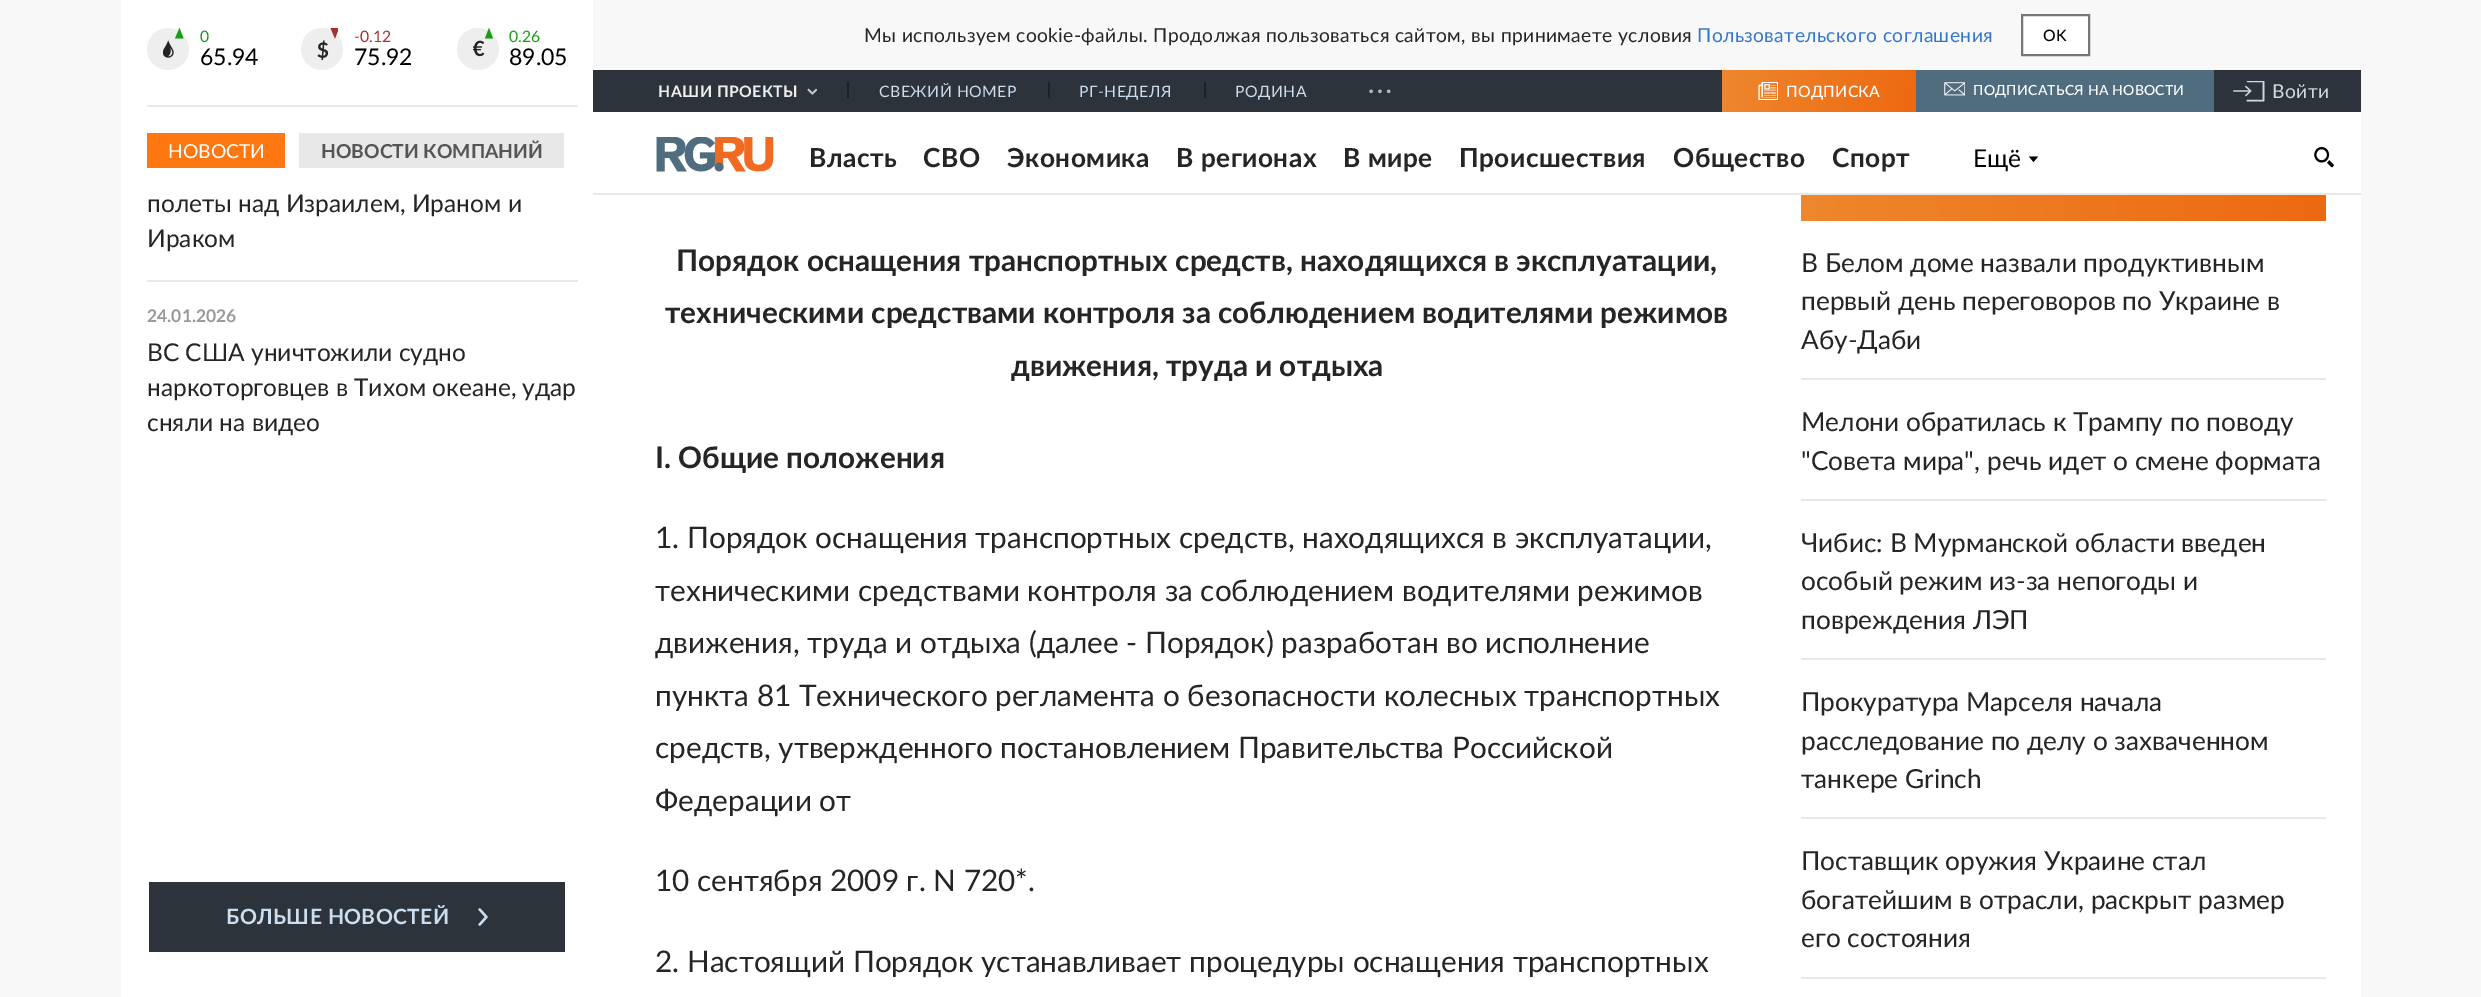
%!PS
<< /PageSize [2481 997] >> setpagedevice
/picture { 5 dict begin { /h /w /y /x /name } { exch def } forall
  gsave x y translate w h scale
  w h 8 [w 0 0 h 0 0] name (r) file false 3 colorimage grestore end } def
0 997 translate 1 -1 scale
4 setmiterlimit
0.973 setgray
0 0 2481 997 rectfill
1 setgray
121 0 472 997 rectfill
0.91 setgray
147 105 431 2 rectfill
0.933 setgray
newpath 168 49 21 0 360 arc closepath fill
0.086 0.624 0.075 setrgbcolor
newpath 175 38.5 moveto 183.5 38.5 lineto 179.5 28 lineto closepath fill
(img1.rgb) 163 40 11 18 picture
/Lato-Regular [15.75 0 0 -15.75 0 0] selectfont
200 42 moveto (0) show
/Lato-Regular [23 0 0 -23 0 0] selectfont
0 setgray
200 65 moveto (65.94) show
0.933 setgray
newpath 322 49 21 0 360 arc closepath fill
gsave
329 28 9 11 rectclip
0.663 0.18 0.173 setrgbcolor
newpath 339 28 moveto 330.5 28 lineto 335 38.5 lineto closepath fill
grestore
(img2.rgb) 317 40 12 21 picture
/Lato-Regular [15.75 0 0 -15.75 0 0] selectfont
0.663 0.18 0.173 setrgbcolor
354 42 moveto (-0.12) show
/Lato-Regular [23 0 0 -23 0 0] selectfont
0 setgray
354 65 moveto (75.92) show
0.933 setgray
newpath 478 49 21 0 360 arc closepath fill
0.086 0.624 0.075 setrgbcolor
newpath 485 38.5 moveto 493 38.5 lineto 489 28 lineto closepath fill
(img3.rgb) 473 40 12 17 picture
/Lato-Regular [15.75 0 0 -15.75 0 0] selectfont
509 42 moveto (0.26) show
/Lato-Regular [23 0 0 -23 0 0] selectfont
0 setgray
509 65 moveto (89.05) show
1 0.467 0.067 setrgbcolor
147 133 138 35 rectfill
/Lato-Regular [19.25 0 0 -19.25 0 0] selectfont
1 setgray
168 158 moveto (НОВОСТИ) show
0.91 setgray
299 133 265 35 rectfill
/Lato-Bold [19.25 0 0 -19.25 0 0] selectfont
0.333 setgray
321 158 moveto (НОВОСТИ КОМПАНИЙ) show
/Lato-Regular [24.5 0 0 -24.5 0 0] selectfont
0.145 setgray
147 212 moveto (полеты над Израилем, Ираном и) show
147 247 moveto (Ираком) show
0.91 setgray
147 280 431 2 rectfill
/Lato-Bold [17.5 0 0 -17.5 0 0] selectfont
0.6 setgray
147 322 moveto (24.01.2026) show
/Lato-Regular [24.5 0 0 -24.5 0 0] selectfont
0.145 setgray
147 361 moveto (ВС США уничтожили судно) show
147 396 moveto (наркоторговцев в Тихом океане, удар) show
147 431 moveto (сняли на видео) show
0.173 0.2 0.231 setrgbcolor
149 882 416 70 rectfill
/Lato-Bold [21 0 0 -21 0 0] selectfont
0.8 0.871 0.933 setrgbcolor
226 924 moveto 0.4 0 (БОЛЬШЕ НОВОСТЕЙ) ashow
(img4.rgb) 478 908 10 18 picture
/Lato-Regular [19.25 0 0 -19.25 0 0] selectfont
0.145 setgray
864 42 moveto 0.4 0 (Мы используем cookie-файлы. Продолжая пользоваться сайтом, вы принимаете условия) ashow
0.2 0.467 0.8 setrgbcolor
1697 42 moveto 0.4 0 (Пользовательского соглашения) ashow
1 setgray
newpath 2022 15 moveto 2089 15 lineto 2089 55 lineto 2022 55 lineto closepath gsave fill grestore
0.467 setgray
2 setlinewidth
stroke
/Lato-Medium [15.75 0 0 -15.75 0 0] selectfont
0 setgray
2043 41 moveto 0.25 0 (OK) ashow
0.173 0.2 0.231 setrgbcolor
593 70 1768 42 rectfill
/Lato-Bold [15.75 0 0 -15.75 0 0] selectfont
0.933 setgray
658 97 moveto 0.5 0 (НАШИ ПРОЕКТЫ) ashow
(img5.rgb) 807 88 10 7 picture
0.102 0.133 0.173 setrgbcolor
847 82 2 16 rectfill
/Lato-Regular [15.75 0 0 -15.75 0 0] selectfont
0.8 0.871 0.933 setrgbcolor
879 97 moveto 0.5 0 (СВЕЖИЙ НОМЕР) ashow
0.102 0.133 0.173 setrgbcolor
1048 82 2 16 rectfill
0.8 0.871 0.933 setrgbcolor
1079 97 moveto 0.5 0 (РГ-НЕДЕЛЯ) ashow
0.102 0.133 0.173 setrgbcolor
1204 82 2 16 rectfill
0.8 0.871 0.933 setrgbcolor
1235 97 moveto 0.5 0 (РОДИНА) ashow
(img6.rgb) 1369 89 22 5 picture
gsave newpath 1722 70 moveto 1916 70 lineto 1916 112 lineto 1722 112 lineto closepath clip newpath
<< /ShadingType 2 /ColorSpace /DeviceRGB /Coords [1917 96 1721 86] /Extend [true true] /Function << /FunctionType 2 /Domain [0 1] /C0 [0.933 0.412 0.067] /C1 [0.929 0.529 0.176] /N 1 >> >> shfill grestore
(img7.rgb) 1758 82 20 18 picture
/Lato-Medium [15.75 0 0 -15.75 0 0] selectfont
1 setgray
1786 97 moveto 0.25 0 (ПОДПИСКА) ashow
0.314 0.424 0.498 setrgbcolor
1916 70 298 42 rectfill
(img8.rgb) 1944 82 21 14 picture
/Lato-Medium [14 0 0 -14 0 0] selectfont
1 setgray
1973 95 moveto 0.25 0 (ПОДПИСАТЬСЯ НА НОВОСТИ) ashow
(img9.rgb) 2233 81 32 21 picture
/Lato-Regular [19.25 0 0 -19.25 0 0] selectfont
0.835 0.839 0.847 setrgbcolor
2272 98 moveto 0.5 0 (Войти) ashow
1 setgray
593 112 1768 81 rectfill
0.91 setgray
593 193 1768 2 rectfill
(img10.rgb) 656 137 118 35 picture
/Lato-Bold [26.25 0 0 -26.25 0 0] selectfont
0.145 setgray
809 167 moveto 0.5 0 (Власть) ashow
923 167 moveto 0.5 0 (СВО) ashow
1007 167 moveto 0.5 0 (Экономика) ashow
1176 167 moveto 0.5 0 (В регионах) ashow
1343 167 moveto 0.5 0 (В мире) ashow
1459 167 moveto 0.5 0 (Происшествия) ashow
1673 167 moveto 0.5 0 (Общество) ashow
1832 167 moveto 0.5 0 (Спорт) ashow
/Lato-Regular [24.5 0 0 -24.5 0 0] selectfont
0 setgray
1973 167 moveto (Ещё) show
newpath 2033.5 162 moveto 2029 156.5 lineto 2038 156.5 lineto closepath fill
(img11.rgb) 2314 147 20 21 picture
1 setgray
593 195 1768 802 rectfill
/Lato-Bold [29.75 0 0 -29.75 0 0] selectfont
0.145 setgray
676 271 moveto (Порядок оснащения транспортных средств, находящихся в эксплуатации,) show
665 323 moveto (техническими средствами контроля за соблюдением водителями режимов) show
1011 376 moveto (движения, труда и отдыха) show
655 468 moveto (I. Общие положения) show
/Lato-Regular [29.75 0 0 -29.75 0 0] selectfont
655 548 moveto (1. Порядок оснащения транспортных средств, находящихся в эксплуатации,) show
655 601 moveto (техническими средствами контроля за соблюдением водителями режимов) show
655 653 moveto (движения, труда и отдыха \(далее - Порядок\) разработан во исполнение) show
655 706 moveto (пункта 81 Технического регламента о безопасности колесных транспортных) show
655 758 moveto (средств, утвержденного постановлением Правительства Российской) show
655 811 moveto (Федерации от) show
655 891 moveto (10 сентября 2009 г. N 720*.) show
655 972 moveto (2. Настоящий Порядок устанавливает процедуры оснащения транспортных) show
gsave newpath 1801 195 moveto 2326 195 lineto 2326 221 lineto 1801 221 lineto closepath clip newpath
<< /ShadingType 2 /ColorSpace /DeviceRGB /Coords [2327 196 1799 168] /Extend [true true] /Function << /FunctionType 2 /Domain [0 1] /C0 [0.933 0.412 0.067] /C1 [0.929 0.529 0.176] /N 1 >> >> shfill grestore
0.91 setgray
1801 378 525 2 rectfill
/Lato-Regular [26.25 0 0 -26.25 0 0] selectfont
0.145 setgray
1801 272 moveto (В Белом доме назвали продуктивным) show
1801 310 moveto (первый день переговоров по Украине в) show
1801 349 moveto (Абу-Даби) show
0.91 setgray
1801 499 525 2 rectfill
0.145 setgray
1801 431 moveto (Мелони обратилась к Трампу по поводу) show
1801 470 moveto ("Совета мира", речь идет о смене формата) show
0.91 setgray
1801 658 525 2 rectfill
0.145 setgray
1801 552 moveto (Чибис: В Мурманской области введен) show
1801 590 moveto (особый режим из-за непогоды и) show
1801 629 moveto (повреждения ЛЭП) show
0.91 setgray
1801 817 525 2 rectfill
0.145 setgray
1801 711 moveto (Прокуратура Марселя начала) show
1801 750 moveto (расследование по делу о захваченном) show
1801 788 moveto (танкере Grinch) show
0.91 setgray
1801 977 525 2 rectfill
0.145 setgray
1801 870 moveto (Поставщик оружия Украине стал) show
1801 909 moveto (богатейшим в отрасли, раскрыт размер) show
1801 947 moveto (его состояния) show
showpage
